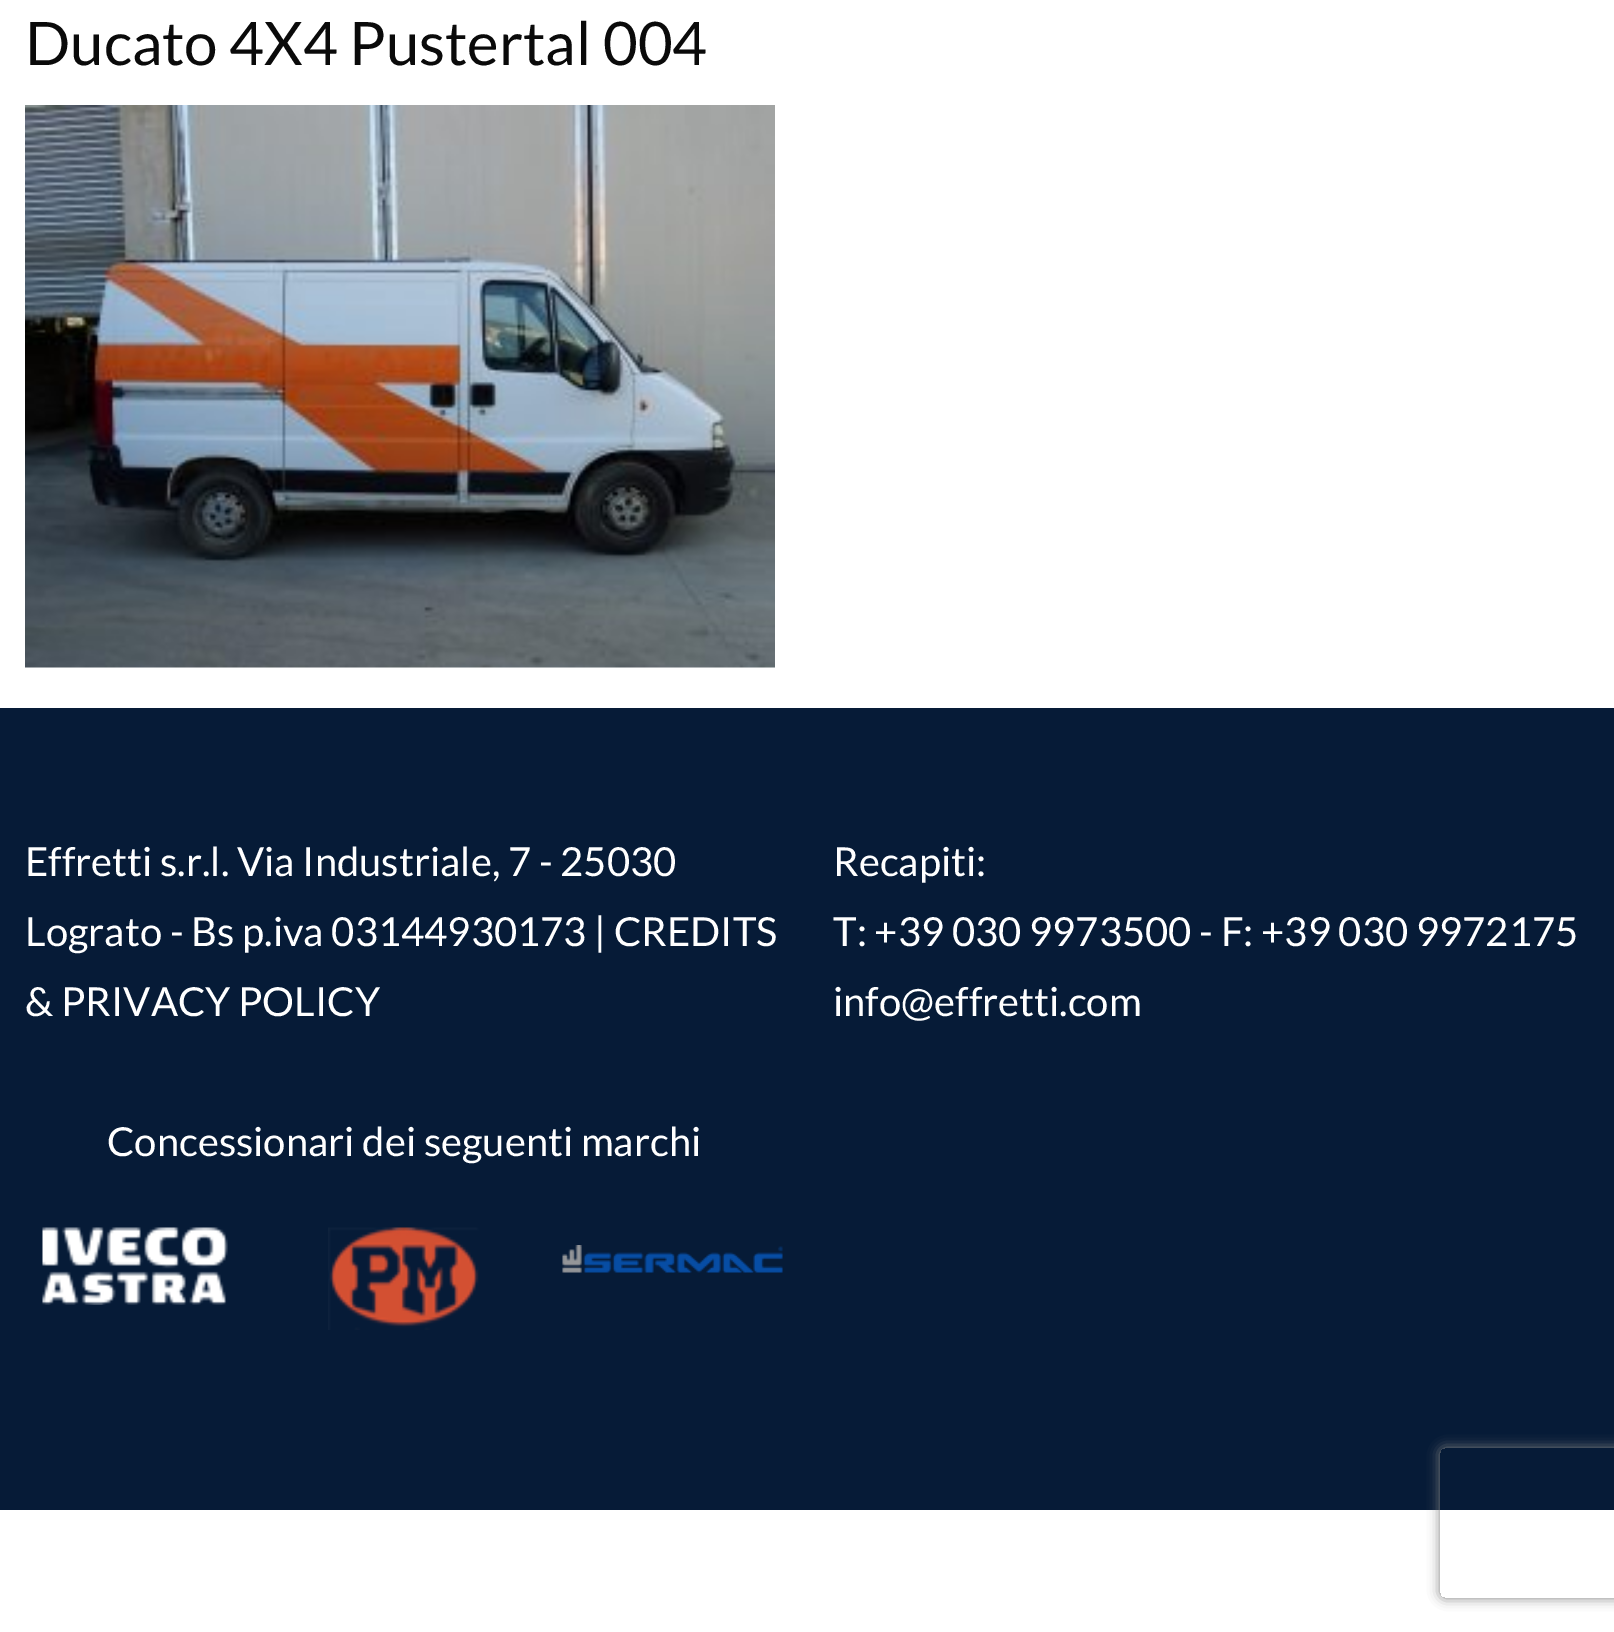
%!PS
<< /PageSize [1614 1632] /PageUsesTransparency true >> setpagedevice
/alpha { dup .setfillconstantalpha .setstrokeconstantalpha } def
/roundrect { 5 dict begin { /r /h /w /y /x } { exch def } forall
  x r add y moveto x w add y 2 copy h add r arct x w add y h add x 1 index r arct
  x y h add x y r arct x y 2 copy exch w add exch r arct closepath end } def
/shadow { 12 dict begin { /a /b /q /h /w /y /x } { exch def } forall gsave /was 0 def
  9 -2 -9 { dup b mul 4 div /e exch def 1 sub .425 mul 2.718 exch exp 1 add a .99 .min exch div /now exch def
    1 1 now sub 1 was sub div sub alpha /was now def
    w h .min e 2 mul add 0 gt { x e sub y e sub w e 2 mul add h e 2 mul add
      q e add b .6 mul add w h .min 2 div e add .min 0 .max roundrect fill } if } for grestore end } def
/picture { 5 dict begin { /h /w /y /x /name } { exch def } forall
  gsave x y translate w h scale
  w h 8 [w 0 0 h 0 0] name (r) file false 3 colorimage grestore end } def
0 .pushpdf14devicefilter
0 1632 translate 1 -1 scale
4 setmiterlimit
1 setgray
0 0 1614 1632 rectfill
/Lato-Regular [60 0 0 -60 0 0] selectfont
0.039 setgray
25 65 moveto (Ducato 4X4 Pustertal 004) show
(img1.rgb) 25 105 750 563 picture
0.024 0.106 0.216 setrgbcolor
0 708 1614 802 rectfill
/Lato-Regular [40 0 0 -40 0 0] selectfont
1 setgray
25 876 moveto (Effretti s.r.l. Via Industriale, 7 - 25030) show
25 946 moveto (Lograto - Bs p.iva 03144930173 | CREDITS) show
25 1016 moveto (& PRIVACY POLICY) show
833 876 moveto (Recapiti:) show
833 946 moveto (T: +39 030 9973500 - F: +39 030 9972175) show
833 1016 moveto (info@effretti.com) show
107 1156 moveto (Concessionari dei seguenti marchi) show
(img2.rgb) 42 1227 186 78 picture
(img3.rgb) 328 1227 151 103 picture
(img4.rgb) 562 1245 221 28 picture
gsave
newpath 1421 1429 moveto 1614 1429 lineto 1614 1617 lineto 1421 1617 lineto closepath 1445 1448 moveto 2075 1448 lineto 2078 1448 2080 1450 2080 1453 curveto 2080 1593 lineto 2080 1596 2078 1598 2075 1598 curveto 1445 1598 lineto 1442 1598 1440 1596 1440 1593 curveto 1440 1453 lineto 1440 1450 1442 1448 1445 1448 curveto closepath eoclip newpath
0.502 setgray
1440 1448 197 150 5 6 1 shadow
grestore
.poppdf14devicefilter showpage
